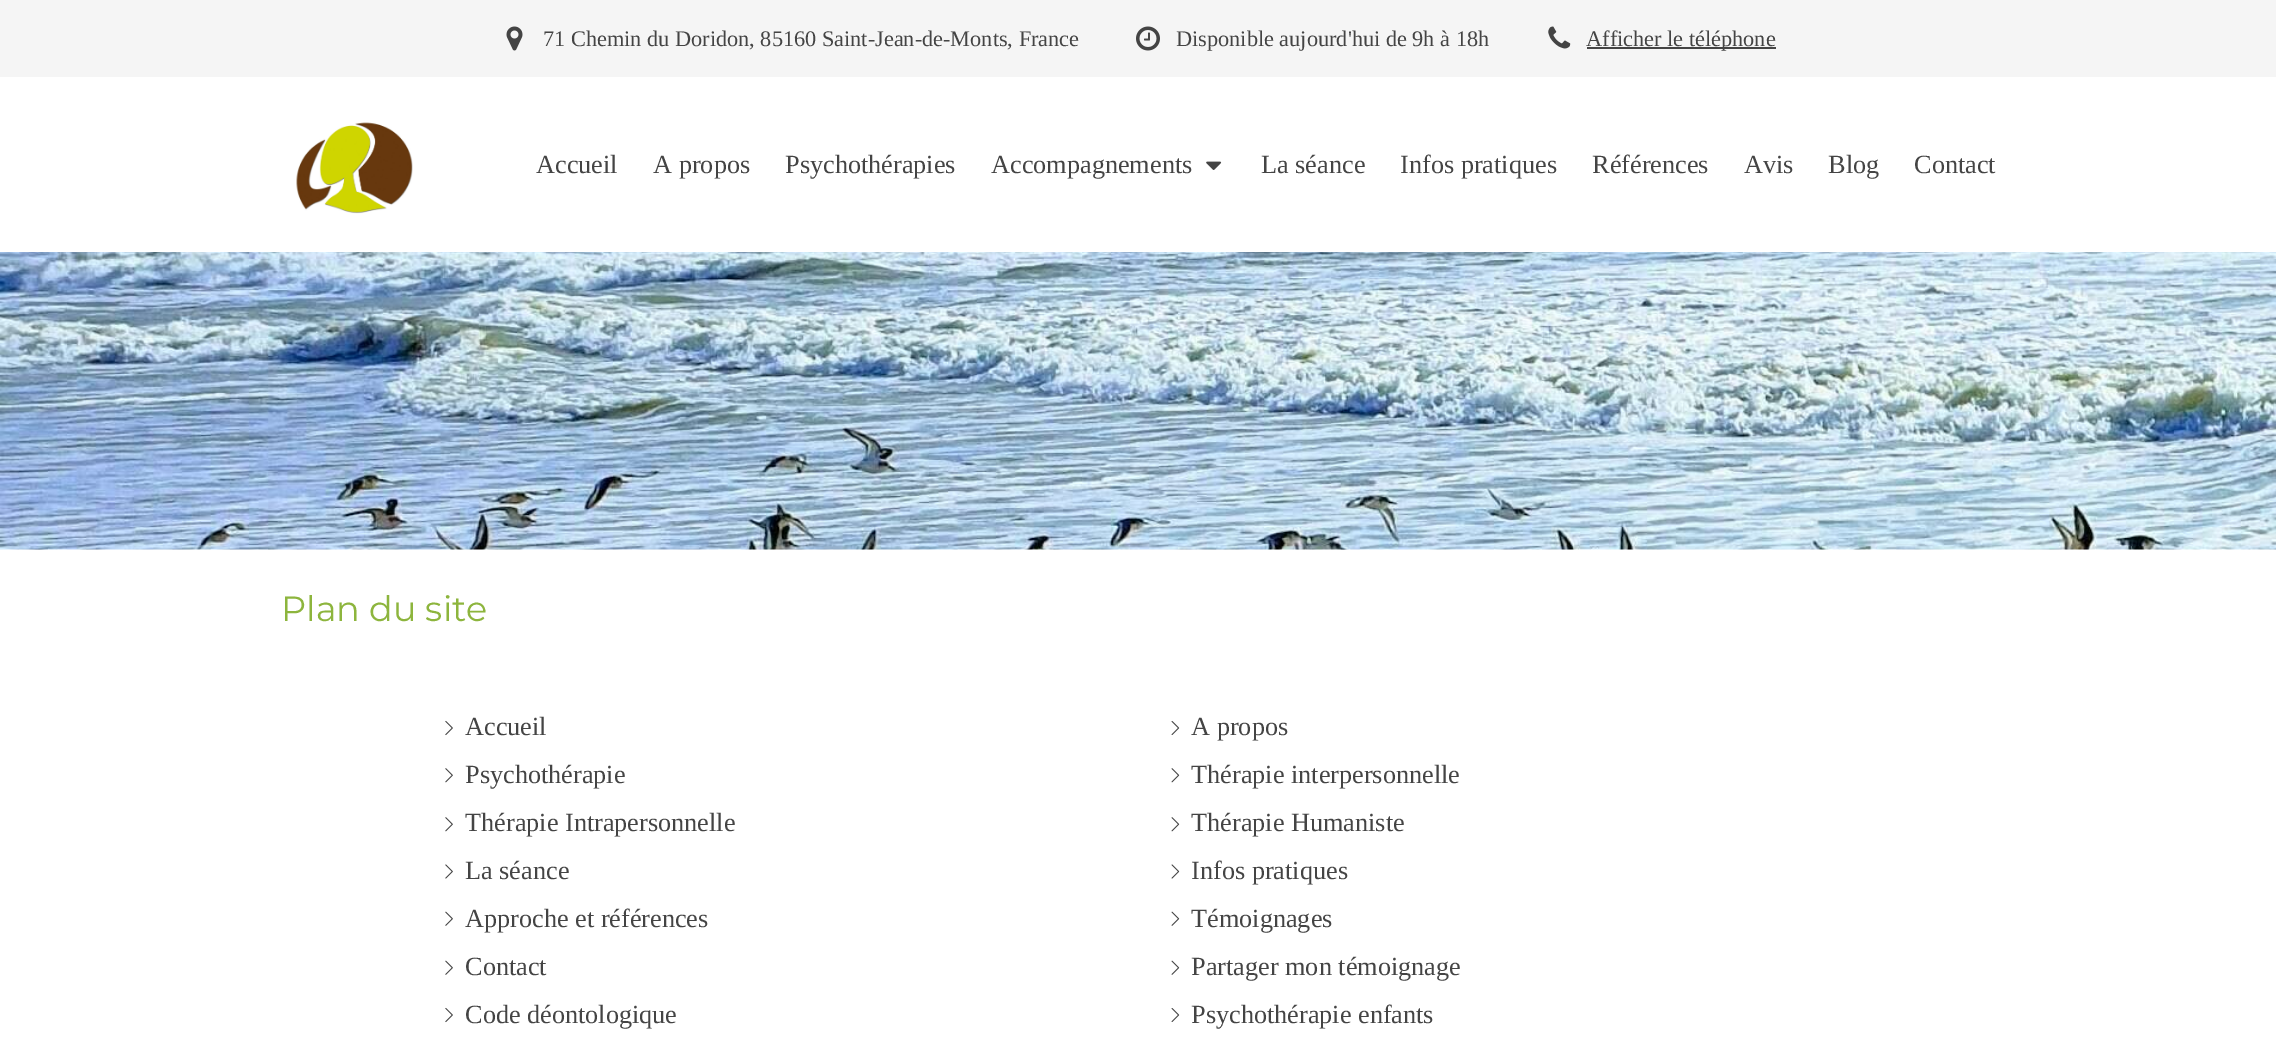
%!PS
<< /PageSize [2276 1042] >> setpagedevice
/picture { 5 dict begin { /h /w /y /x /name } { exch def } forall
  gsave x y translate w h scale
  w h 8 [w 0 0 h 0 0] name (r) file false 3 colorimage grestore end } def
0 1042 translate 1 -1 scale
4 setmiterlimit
1 setgray
0 0 2276 1042 rectfill
0.961 setgray
0 0 2276 77 rectfill
(img1.rgb) 506 26 17 25 picture
/LiberationSerif-Regular [22.3 0 0 -22.3 0 0] selectfont
0.267 setgray
543 46 moveto (71 Chemin du Doridon, 85160 Saint-Jean-de-Monts, France) show
(img2.rgb) 1136 26 24 25 picture
1176 46 moveto (Disponible aujourd'hui de 9h à 18h) show
(img3.rgb) 1548 26 23 23 picture
1587 47 189 2 rectfill
1586 46 moveto (Afficher le téléphone) show
(img4.rgb) 296 122 117 92 picture
/LiberationSerif-Regular [26.25 0 0 -26.25 0 0] selectfont
536 173 moveto (Accueil) show
653 173 moveto (A propos) show
785 173 moveto (Psychothérapies) show
991 173 moveto (Accompagnements) show
(img5.rgb) 1206 161 16 9 picture
1261 173 moveto (La séance) show
1400 173 moveto (Infos pratiques) show
1592 173 moveto (Références) show
1744 173 moveto (Avis) show
1828 173 moveto (Blog) show
1914 173 moveto (Contact) show
(img6.rgb) 0 252 2276 298 picture
/Montserrat-Regular [35 0 0 -35 0 0] selectfont
0.553 0.71 0.239 setrgbcolor
281 621 moveto (Plan du site) show
(img7.rgb) 445 720 8 16 picture
/LiberationSerif-Regular [26.25 0 0 -26.25 0 0] selectfont
0.267 setgray
465 735 moveto (Accueil) show
(img8.rgb) 1171 721 9 14 picture
1191 735 moveto (A propos) show
(img9.rgb) 445 768 8 15 picture
465 783 moveto (Psychothérapie) show
(img10.rgb) 1171 768 9 15 picture
1191 783 moveto (Thérapie interpersonnelle) show
(img9.rgb) 445 817 8 15 picture
465 831 moveto (Thérapie Intrapersonnelle) show
(img10.rgb) 1171 817 9 15 picture
1191 831 moveto (Thérapie Humaniste) show
(img11.rgb) 445 864 8 15 picture
465 879 moveto (La séance) show
(img12.rgb) 1171 864 9 15 picture
1191 879 moveto (Infos pratiques) show
(img13.rgb) 445 911 8 15 picture
465 927 moveto (Approche et références) show
(img14.rgb) 1171 911 9 15 picture
1191 927 moveto (Témoignages) show
(img13.rgb) 445 960 8 15 picture
465 975 moveto (Contact) show
(img14.rgb) 1171 960 9 15 picture
1191 975 moveto (Partager mon témoignage) show
(img7.rgb) 445 1007 8 16 picture
465 1023 moveto (Code déontologique) show
(img8.rgb) 1171 1008 9 14 picture
1191 1023 moveto (Psychothérapie enfants) show
showpage
